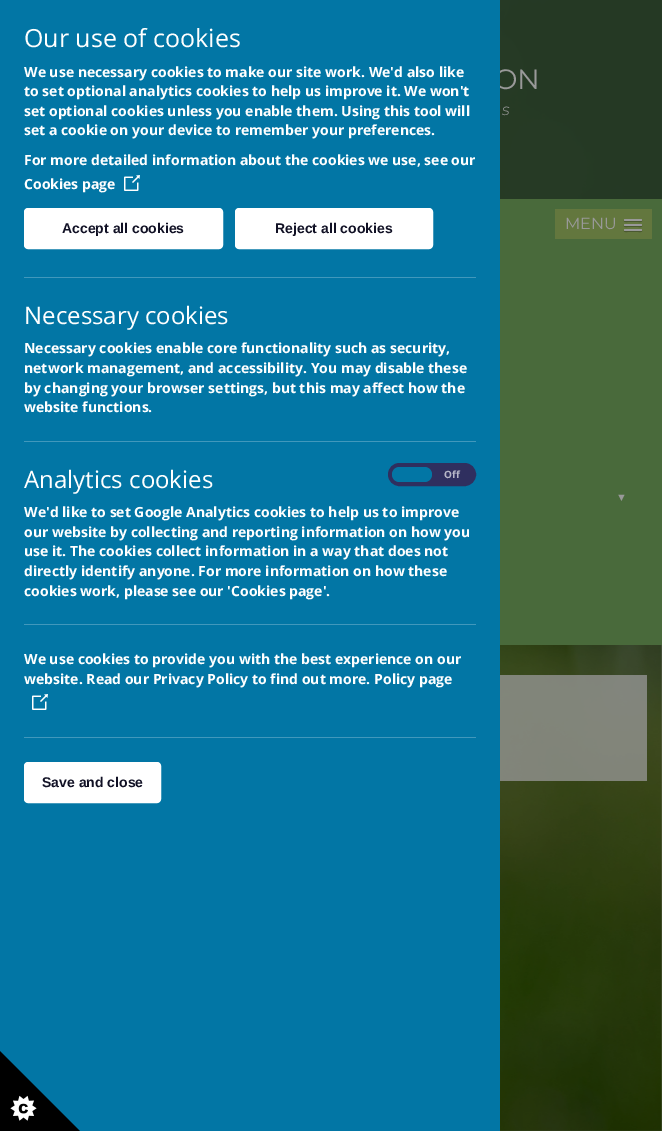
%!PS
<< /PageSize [662 1131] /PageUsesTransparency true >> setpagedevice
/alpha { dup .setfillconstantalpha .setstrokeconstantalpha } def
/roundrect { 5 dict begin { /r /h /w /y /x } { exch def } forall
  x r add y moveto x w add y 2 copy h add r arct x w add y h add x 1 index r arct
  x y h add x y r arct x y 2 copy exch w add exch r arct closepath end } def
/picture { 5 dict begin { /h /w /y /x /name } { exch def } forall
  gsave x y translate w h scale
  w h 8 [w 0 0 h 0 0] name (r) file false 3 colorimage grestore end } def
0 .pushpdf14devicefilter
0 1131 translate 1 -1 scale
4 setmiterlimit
1 setgray
0 0 662 1131 rectfill
(img1.rgb) 500 0 162 1131 picture
0.95 alpha
0.149 0.227 0.149 setrgbcolor
500 0 162 199 rectfill
/Montserrat-Regular [28 0 0 -28 0 0] selectfont
1 alpha
0.6 setgray
494 89 moveto (ON) show
0.008 0.463 0.647 setrgbcolor
0 0 500 1131 rectfill
/OpenSans-Regular [25 0 0 -25 0 0] selectfont
1 setgray
24 47 moveto (Our use of cookies) show
/OpenSans-Bold [14 0 0 -14 0 0] selectfont
24 77 moveto (We use necessary cookies to make our site work. We'd also like) show
24 96 moveto (to set optional analytics cookies to help us improve it. We won't) show
24 116 moveto (set optional cookies unless you enable them. Using this tool will) show
24 135 moveto (set a cookie on your device to remember your preferences.) show
24 165 moveto (For more detailed information about the cookies we use, see our) show
24 189 moveto (Cookies page) show
(img2.rgb) 124 175 16 16 picture
25 209 197 39 3 roundrect gsave fill grestore
2 setlinewidth
stroke
/LiberationSans-Bold [14 0 0 -14 0 0] selectfont
0.067 0.067 0.145 setrgbcolor
62 233 moveto (Accept all cookies) show
1 setgray
236 209 196 39 3 roundrect gsave fill grestore
stroke
0.067 0.067 0.145 setrgbcolor
275 233 moveto (Reject all cookies) show
0.255 0.596 0.737 setrgbcolor
24 277 452 1 rectfill
/OpenSans-Regular [24 0 0 -24 0 0] selectfont
1 setgray
24 324 moveto (Necessary cookies) show
/OpenSans-Bold [14 0 0 -14 0 0] selectfont
24 353 moveto (Necessary cookies enable core functionality such as security,) show
24 373 moveto (network management, and accessibility. You may disable these) show
24 393 moveto (by changing your browser settings, but this may affect how the) show
24 412 moveto (website functions.) show
0.255 0.596 0.737 setrgbcolor
24 441 452 1 rectfill
/OpenSans-Regular [24 0 0 -24 0 0] selectfont
1 setgray
24 488 moveto (Analytics cookies) show
0.184 0.184 0.373 setrgbcolor
390 465 84 19 9.5 roundrect gsave fill grestore
4 setlinewidth
stroke
0.008 0.463 0.647 setrgbcolor
392 467 40 15 7.5 roundrect fill
/OpenSans-Bold [10 0 0 -10 0 0] selectfont
0.714 0.714 0.78 setrgbcolor
444 478 moveto (Off) show
/OpenSans-Bold [14 0 0 -14 0 0] selectfont
1 setgray
24 517 moveto (We'd like to set Google Analytics cookies to help us to improve) show
24 537 moveto (our website by collecting and reporting information on how you) show
24 556 moveto (use it. The cookies collect information in a way that does not) show
24 576 moveto (directly identify anyone. For more information on how these) show
24 596 moveto (cookies work, please see our 'Cookies page'.) show
0.255 0.596 0.737 setrgbcolor
24 624 452 1 rectfill
1 setgray
24 664 moveto (We use cookies to provide you with the best experience on our) show
24 684 moveto (website. Read our Privacy Policy to find out more. Policy page) show
(img2.rgb) 32 694 16 16 picture
0.255 0.596 0.737 setrgbcolor
24 737 452 1 rectfill
1 setgray
25 763 135 39 3 roundrect gsave fill grestore
2 setlinewidth
stroke
/LiberationSans-Bold [14 0 0 -14 0 0] selectfont
0.067 0.067 0.145 setrgbcolor
42 787 moveto (Save and close) show
(img3.rgb) 0 1051 80 80 picture
/Montserrat-LightItalic [16 0 0 -16 0 0] selectfont
0.6 setgray
502 115 moveto (s) show
0.286 0.416 0.231 setrgbcolor
500 199 162 446 rectfill
0.388 0.467 0.243 setrgbcolor
555 209 97 30 rectfill
/Montserrat-Regular [16 0 0 -16 0 0] selectfont
0.6 setgray
565 229 moveto (MENU) show
0.29 0.349 0.184 setrgbcolor
newpath 624 220.5 moveto 623 222.5 627.5 222 627.5 222 curveto 638.5 222 lineto 638.5 222 643 222.5 642 220.5 curveto 641 221.5 634.5 221 633 221 curveto 631.5 221 625 221.5 624 220.5 curveto closepath fill
0.6 setgray
624 219 18 2 1 roundrect fill
0.29 0.349 0.184 setrgbcolor
newpath 624 225.5 moveto 623 227.5 627.5 227 627.5 227 curveto 638.5 227 lineto 638.5 227 643 227.5 642 225.5 curveto 641 226.5 634.5 226 633 226 curveto 631.5 226 625 226.5 624 225.5 curveto closepath fill
0.6 setgray
624 224 18 2 1 roundrect fill
0.29 0.349 0.184 setrgbcolor
newpath 624 230.5 moveto 623 232.5 627.5 232 627.5 232 curveto 638.5 232 lineto 638.5 232 643 232.5 642 230.5 curveto 641 231.5 634.5 231 633 231 curveto 631.5 231 625 231.5 624 230.5 curveto closepath fill
0.6 setgray
624 229 18 2 1 roundrect fill
/LiberationSans-Regular [11 0 0 -11 0 0] selectfont
616 501 moveto (▼) show
0.75 alpha
500 675 147 58 rectfill
500 733 147 48 rectfill
.poppdf14devicefilter showpage
